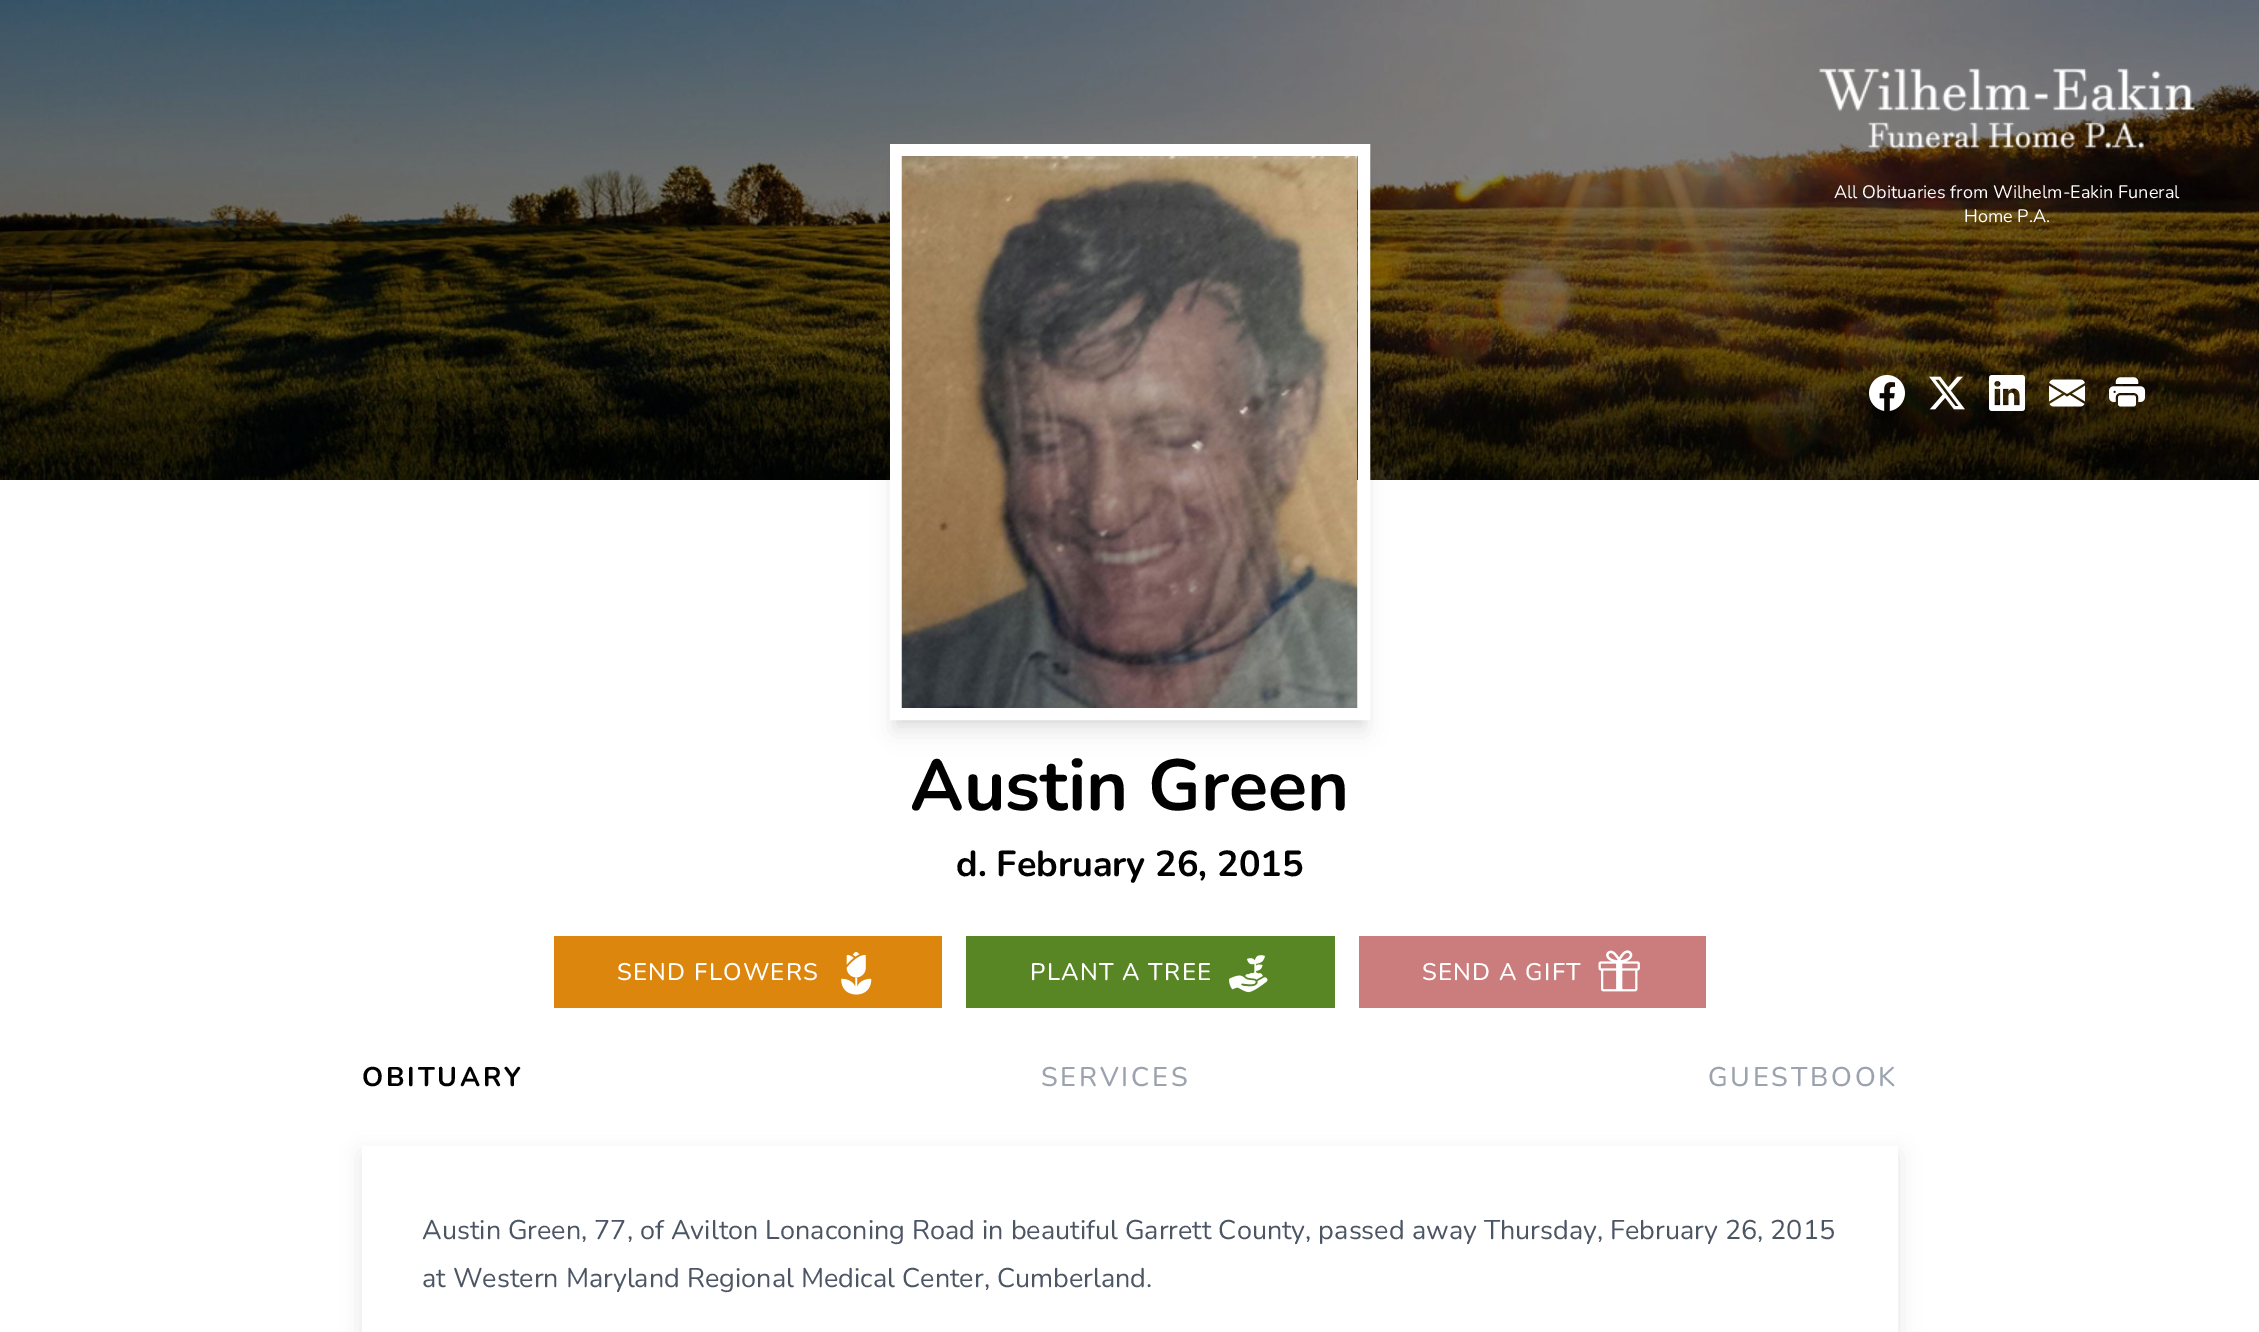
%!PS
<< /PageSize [2259 1332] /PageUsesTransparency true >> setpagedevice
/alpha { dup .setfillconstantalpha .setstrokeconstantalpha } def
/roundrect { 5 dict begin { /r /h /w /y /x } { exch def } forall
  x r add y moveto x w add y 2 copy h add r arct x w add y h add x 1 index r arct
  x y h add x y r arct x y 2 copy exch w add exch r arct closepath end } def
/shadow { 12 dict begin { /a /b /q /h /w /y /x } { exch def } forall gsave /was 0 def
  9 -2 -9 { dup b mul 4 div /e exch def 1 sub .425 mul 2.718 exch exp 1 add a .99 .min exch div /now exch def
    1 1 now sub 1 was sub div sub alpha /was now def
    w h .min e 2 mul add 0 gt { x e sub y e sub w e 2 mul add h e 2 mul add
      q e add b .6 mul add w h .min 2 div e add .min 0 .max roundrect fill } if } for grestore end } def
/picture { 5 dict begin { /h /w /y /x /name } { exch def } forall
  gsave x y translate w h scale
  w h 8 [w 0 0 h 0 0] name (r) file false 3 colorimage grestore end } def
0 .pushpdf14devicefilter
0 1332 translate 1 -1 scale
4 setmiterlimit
1 setgray
0 0 2259 1332 rectfill
(img1.rgb) 0 0 2259 480 picture
(img2.rgb) 1819 68 377 81 picture
/Nunito-Regular [18 0 0 -18 0 0] selectfont
1834 198 moveto (All Obituaries from Wilhelm-Eakin Funeral) show
1964 222 moveto (Home P.A.) show
(img3.rgb) 1869 375 36 36 picture
(img4.rgb) 1929 376 36 34 picture
(img5.rgb) 1989 375 36 36 picture
(img6.rgb) 2049 379 36 28 picture
(img7.rgb) 2109 377 36 30 picture
0 setgray
896 156 468 564 0 4.5 0.1 shadow
894 164 471 567 0 11 0.1 shadow
1 setgray
12 setlinewidth
896 150 468 564 rectstroke
(img8.rgb) 901 156 457 552 picture
/Nunito-Bold [72 0 0 -72 0 0] selectfont
0 setgray
910 810 moveto (Austin Green) show
/Nunito-Bold [36 0 0 -36 0 0] selectfont
956 876 moveto (d. February 26, 2015) show
0.863 0.525 0.051 setrgbcolor
554 936 388 72 rectfill
/Nunito-Medium [24 0 0 -24 0 0] selectfont
1 setgray
617 980 moveto 1.25 0 (SEND FLOWERS) ashow
(img9.rgb) 841 951 31 44 picture
0.345 0.525 0.141 setrgbcolor
966 936 369 72 rectfill
1 setgray
1030 980 moveto 1.25 0 (PLANT A TREE) ashow
(img10.rgb) 1229 955 39 38 picture
0.796 0.486 0.486 setrgbcolor
1359 936 347 72 rectfill
1 setgray
1422 980 moveto 1.25 0 (SEND A GIFT) ashow
(img11.rgb) 1598 950 42 42 picture
/Nunito-Bold [27 0 0 -27 0 0] selectfont
0 setgray
362 1086 moveto 2.75 0 (OBITUARY) ashow
/Nunito-Medium [27 0 0 -27 0 0] selectfont
0.612 0.639 0.686 setrgbcolor
1041 1086 moveto 2.75 0 (SERVICES) ashow
1708 1086 moveto 2.75 0 (GUESTBOOK) ashow
gsave
newpath 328 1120 moveto 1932 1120 lineto 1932 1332 lineto 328 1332 lineto closepath 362 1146 moveto 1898 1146 lineto 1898 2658 lineto 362 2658 lineto closepath eoclip newpath
0 setgray
362 1154 1536 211 0 11 0.1 shadow
grestore
/Nunito-Regular [27 0 0 -27 0 0] selectfont
0.294 0.333 0.388 setrgbcolor
422 1239 moveto (Austin Green, 77, of Avilton Lonaconing Road in beautiful Garrett County, passed away Thursday, February 26, 2015) show
422 1287 moveto (at Western Maryland Regional Medical Center, Cumberland.) show
.poppdf14devicefilter showpage
